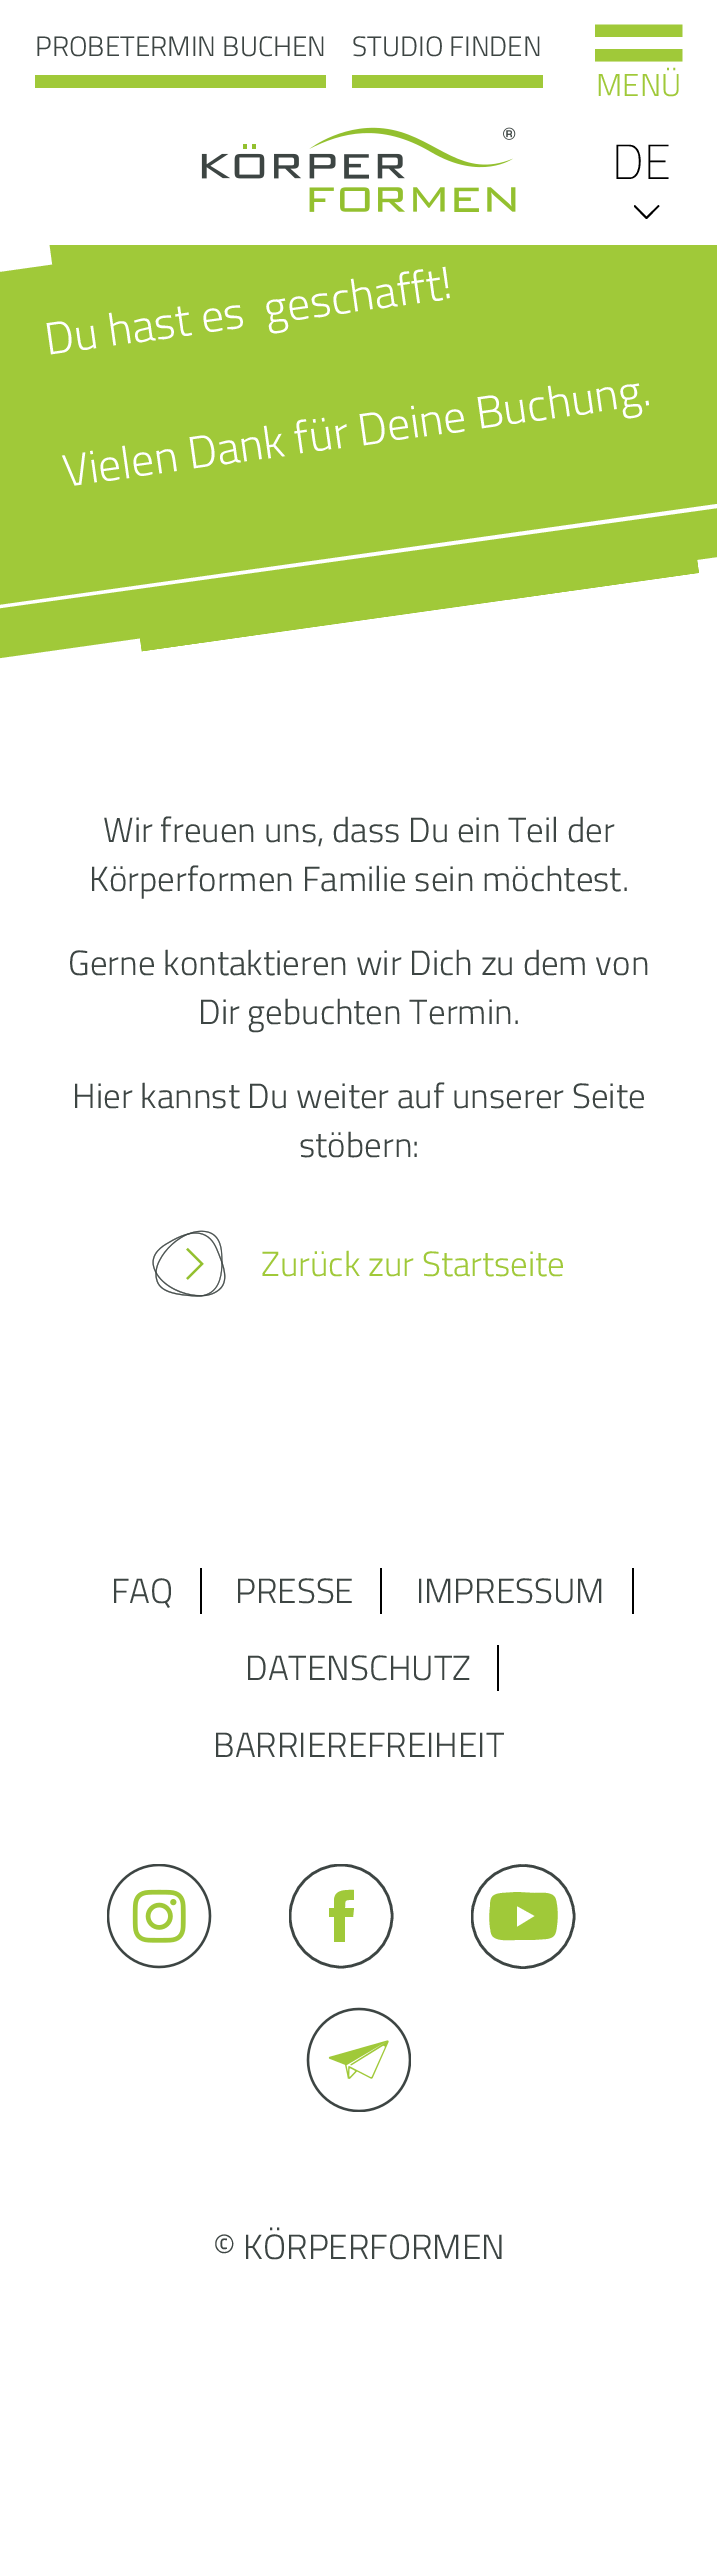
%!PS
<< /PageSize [717 2554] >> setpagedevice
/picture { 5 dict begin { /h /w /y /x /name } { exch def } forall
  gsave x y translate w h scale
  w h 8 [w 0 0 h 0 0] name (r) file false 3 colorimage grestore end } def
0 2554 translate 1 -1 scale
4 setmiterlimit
1 setgray
0 0 717 2554 rectfill
0.627 0.788 0.224 setrgbcolor
newpath -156 294 moveto 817 157 lineto 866 506 lineto -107 643 lineto closepath fill
newpath -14 298 moveto 682 200 lineto 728 525 lineto 32 623 lineto closepath fill
(img3.rgb) 276 245 90 1 picture
/TitilliumWeb-Light [45.5 0 0 -45.5 0 0] selectfont
1 setgray
gsave 47 355 translate -8 rotate 0 0 moveto (Du hast es  geschafft!) show grestore
0.627 0.788 0.224 setrgbcolor
newpath 47 225 moveto 534 157 lineto 541 209 lineto 54 277 lineto closepath fill
1 setgray
47 157 670 88 rectfill
0.627 0.788 0.224 setrgbcolor
35 75 291 13 rectfill
/TitilliumWeb-Light [28 0 0 -28 0 0] selectfont
0.239 0.271 0.263 setrgbcolor
35 56 moveto (PROBETERMIN BUCHEN) show
0.627 0.788 0.224 setrgbcolor
352 75 191 13 rectfill
0.239 0.271 0.263 setrgbcolor
352 56 moveto (STUDIO FINDEN) show
(img1.rgb) 595 24 88 38 picture
/TitilliumWeb-Light [31.5 0 0 -31.5 0 0] selectfont
0.627 0.788 0.224 setrgbcolor
596 96 moveto (MENÜ) show
gsave
634 205 26 14 rectclip
0 setgray
newpath 659.5 206 moveto 646.5 219.5 lineto 633.5 206 lineto 635 205 lineto 646.5 216.5 lineto 658.5 205 lineto closepath fill
grestore
/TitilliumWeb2-Light [49 0 0 -49 0 0] selectfont
0 setgray
612 179 moveto (DE) show
(img2.rgb) 201 127 315 85 picture
/TitilliumWeb-Light [45.5 0 0 -45.5 0 0] selectfont
1 setgray
gsave 65 487 translate -8 rotate 0 0 moveto (Vielen Dank für Deine Buchung.) show grestore
(img4.rgb) 140 559 559 93 picture
0.627 0.788 0.224 setrgbcolor
newpath -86 617 moveto 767 497 lineto 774 549 lineto -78 669 lineto closepath fill
1 setgray
newpath -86 617 moveto 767 497 lineto 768 501 lineto -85 620 lineto closepath fill
/TitilliumWeb-Light [35 0 0 -35 0 0] selectfont
0.239 0.271 0.263 setrgbcolor
103 842 moveto (Wir freuen uns, dass Du ein Teil der) show
89 891 moveto (Körperformen Familie sein möchtest.) show
68 975 moveto (Gerne kontaktieren wir Dich zu dem von) show
198 1024 moveto (Dir gebuchten Termin.) show
72 1108 moveto (Hier kannst Du weiter auf unserer Seite) show
299 1157 moveto (stöbern:) show
(img5.rgb) 152 1230 74 67 picture
0.627 0.788 0.224 setrgbcolor
261 1276 moveto (Zurück zur Startseite) show
0 setgray
200 1568 2 46 rectfill
0.239 0.271 0.263 setrgbcolor
111 1603 moveto (FAQ) show
0 setgray
380 1568 2 46 rectfill
0.239 0.271 0.263 setrgbcolor
235 1603 moveto (PRESSE) show
0 setgray
632 1568 2 46 rectfill
0.239 0.271 0.263 setrgbcolor
416 1603 moveto (IMPRESSUM) show
0 setgray
497 1645 2 46 rectfill
0.239 0.271 0.263 setrgbcolor
245 1680 moveto (DATENSCHUTZ) show
213 1757 moveto (BARRIEREFREIHEIT) show
(img6.rgb) 107 1864 105 105 picture
gsave
289 1864 105 105 rectclip
2.6 setlinewidth
newpath 341 1916 51 0 360 arc closepath stroke
grestore
gsave
471 1864 105 105 rectclip
2.6 setlinewidth
newpath 523 1916.5 51 0 360 arc closepath stroke
grestore
0.627 0.788 0.224 setrgbcolor
newpath 334 1901 moveto 334 1908 lineto 329 1908 lineto 329 1917 lineto 334 1917 lineto 334 1942 lineto 345 1942 lineto 345 1917 lineto 353 1917 lineto 354 1908 lineto 345 1908 lineto 345 1899 345 1900 354 1900 curveto 354 1890 lineto 346 1890 334 1889 334 1901 curveto closepath fill
newpath 556 1900 moveto 554 1891 541 1893 534 1893 curveto 517 1892 lineto 502 1893 lineto 492 1894 490 1897 490 1907 curveto 489 1916 489 1924 491 1933 curveto 493 1942 509 1940 515 1940 curveto 532 1940 lineto 546 1939 lineto 555 1938 556 1934 557 1925 curveto 558 1917 558 1908 556 1900 curveto closepath 517 1927 moveto 517 1906 lineto 535 1916 lineto closepath fill
(img7.rgb) 306 2007 105 105 picture
0.239 0.271 0.263 setrgbcolor
213 2259 moveto (© KÖRPERFORMEN) show
showpage
